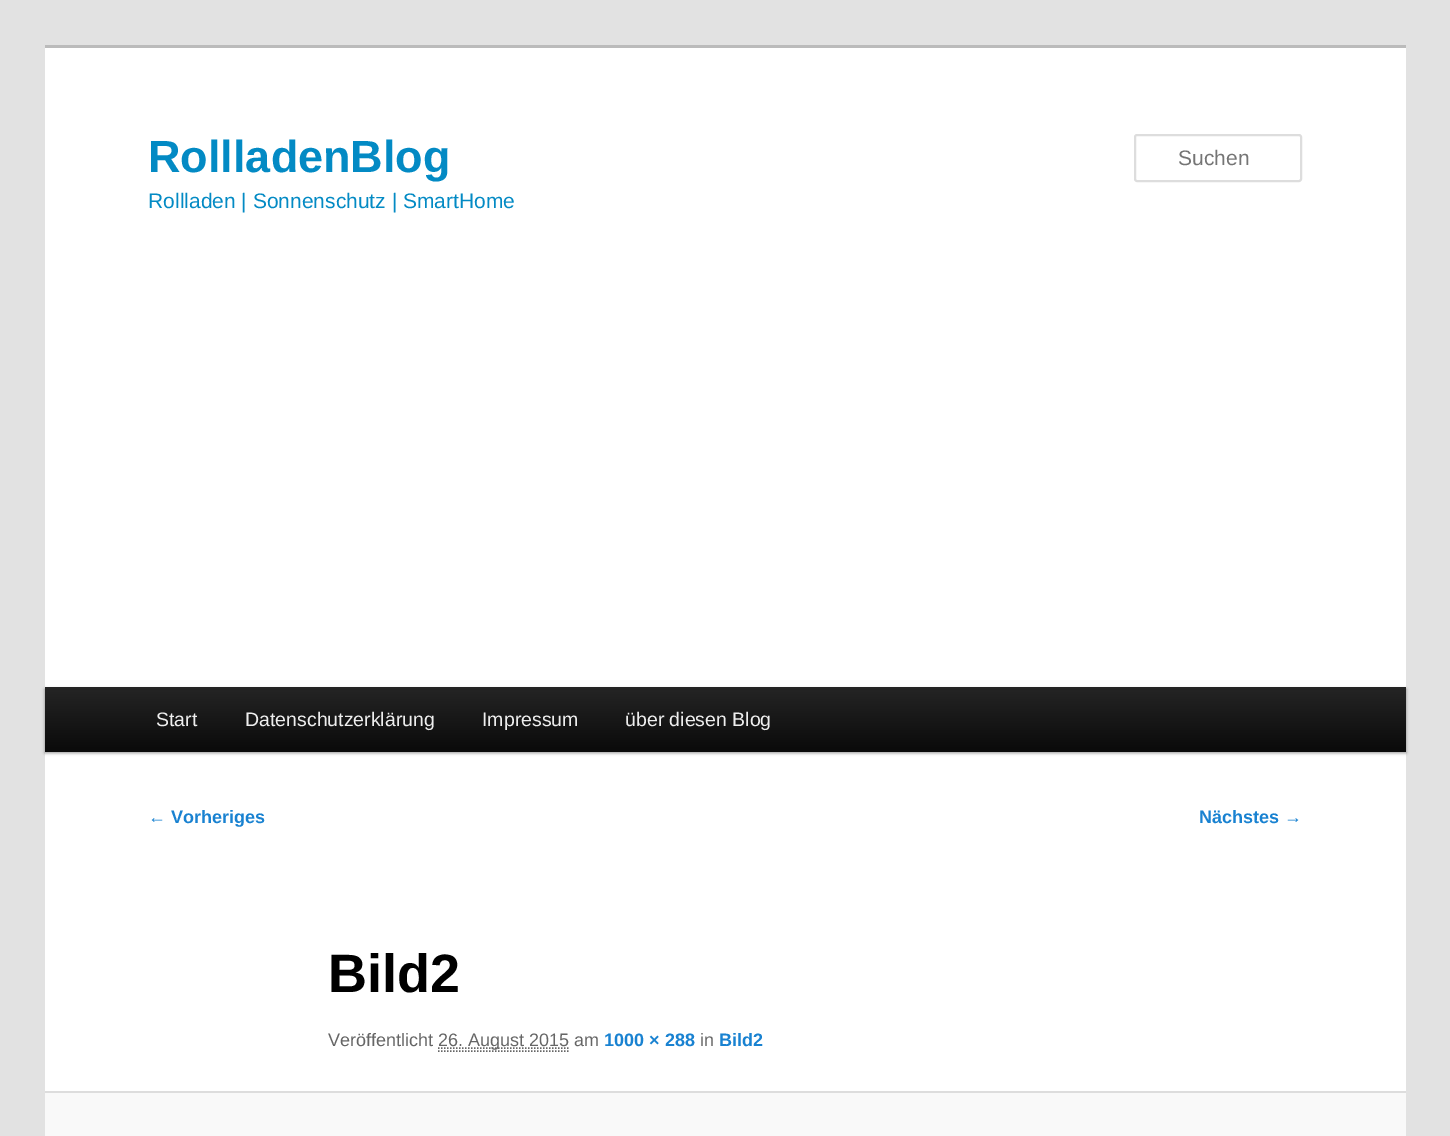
%!PS
<< /PageSize [1450 1136] /PageUsesTransparency true >> setpagedevice
/alpha { dup .setfillconstantalpha .setstrokeconstantalpha } def
/roundrect { 5 dict begin { /r /h /w /y /x } { exch def } forall
  x r add y moveto x w add y 2 copy h add r arct x w add y h add x 1 index r arct
  x y h add x y r arct x y 2 copy exch w add exch r arct closepath end } def
/shadow { 12 dict begin { /a /b /q /h /w /y /x } { exch def } forall gsave /was 0 def
  9 -2 -9 { dup b mul 4 div /e exch def 1 sub .425 mul 2.718 exch exp 1 add a .99 .min exch div /now exch def
    1 1 now sub 1 was sub div sub alpha /was now def
    w h .min e 2 mul add 0 gt { x e sub y e sub w e 2 mul add h e 2 mul add
      q e add b .6 mul add w h .min 2 div e add .min 0 .max roundrect fill } if } for grestore end } def
0 .pushpdf14devicefilter
0 1136 translate 1 -1 scale
4 setmiterlimit
0.886 setgray
0 0 1450 1136 rectfill
1 setgray
45 48 1361 1043 rectfill
0.733 setgray
45 45 1361 3 rectfill
/LiberationSans-Bold [45 0 0 -45 0 0] selectfont
0.012 0.541 0.769 setrgbcolor
148 172 moveto (RollladenBlog) show
/LiberationSans-Regular [21 0 0 -21 0 0] selectfont
148 208 moveto (Rollladen | Sonnenschutz | SmartHome) show
0.867 setgray
2 setlinewidth
1135 135 166 46 2 roundrect stroke
0.459 setgray
1178 165 moveto (Suchen) show
0 setgray
45 689 1361 64 0 1.5 0.4 shadow
gsave newpath 45 687 moveto 1406 687 lineto 1406 752 lineto 45 752 lineto closepath clip newpath
<< /ShadingType 2 /ColorSpace /DeviceRGB /Coords [725 687 725 752] /Extend [true true] /Function << /FunctionType 2 /Domain [0 1] /C0 [0.145 0.145 0.145] /C1 [0.039 0.039 0.039] /N 1 >> >> shfill grestore
/LiberationSans-Regular [19.5 0 0 -19.5 0 0] selectfont
0.933 setgray
156 726 moveto (Start) show
245 726 moveto (Datenschutzerklärung) show
482 726 moveto (Impressum) show
625 726 moveto (über diesen Blog) show
/LiberationSans-Bold [18 0 0 -18 0 0] selectfont
0.098 0.51 0.82 setrgbcolor
148 823 moveto (← Vorheriges) show
1199 823 moveto (Nächstes →) show
/LiberationSans-Bold [54 0 0 -54 0 0] selectfont
0 setgray
328 992 moveto (Bild2) show
/LiberationSans-Regular [18 0 0 -18 0 0] selectfont
0.4 setgray
328 1046 moveto (Veröffentlicht) show
1.5 setlinewidth
[1.5 1.5] 0 setdash
newpath 438 1048 moveto 569 1048 lineto stroke
438 1046 moveto (26. August 2015 am) show
newpath 438 1051 moveto 568.5 1051 lineto stroke
/LiberationSans-Bold [18 0 0 -18 0 0] selectfont
0.098 0.51 0.82 setrgbcolor
604 1046 moveto (1000 × 288) show
/LiberationSans-Regular [18 0 0 -18 0 0] selectfont
0.4 setgray
700 1046 moveto (in) show
/LiberationSans-Bold [18 0 0 -18 0 0] selectfont
0.098 0.51 0.82 setrgbcolor
719 1046 moveto (Bild2) show
0.976 setgray
45 1093 1361 43 rectfill
0.867 setgray
45 1091 1361 2 rectfill
.poppdf14devicefilter showpage
